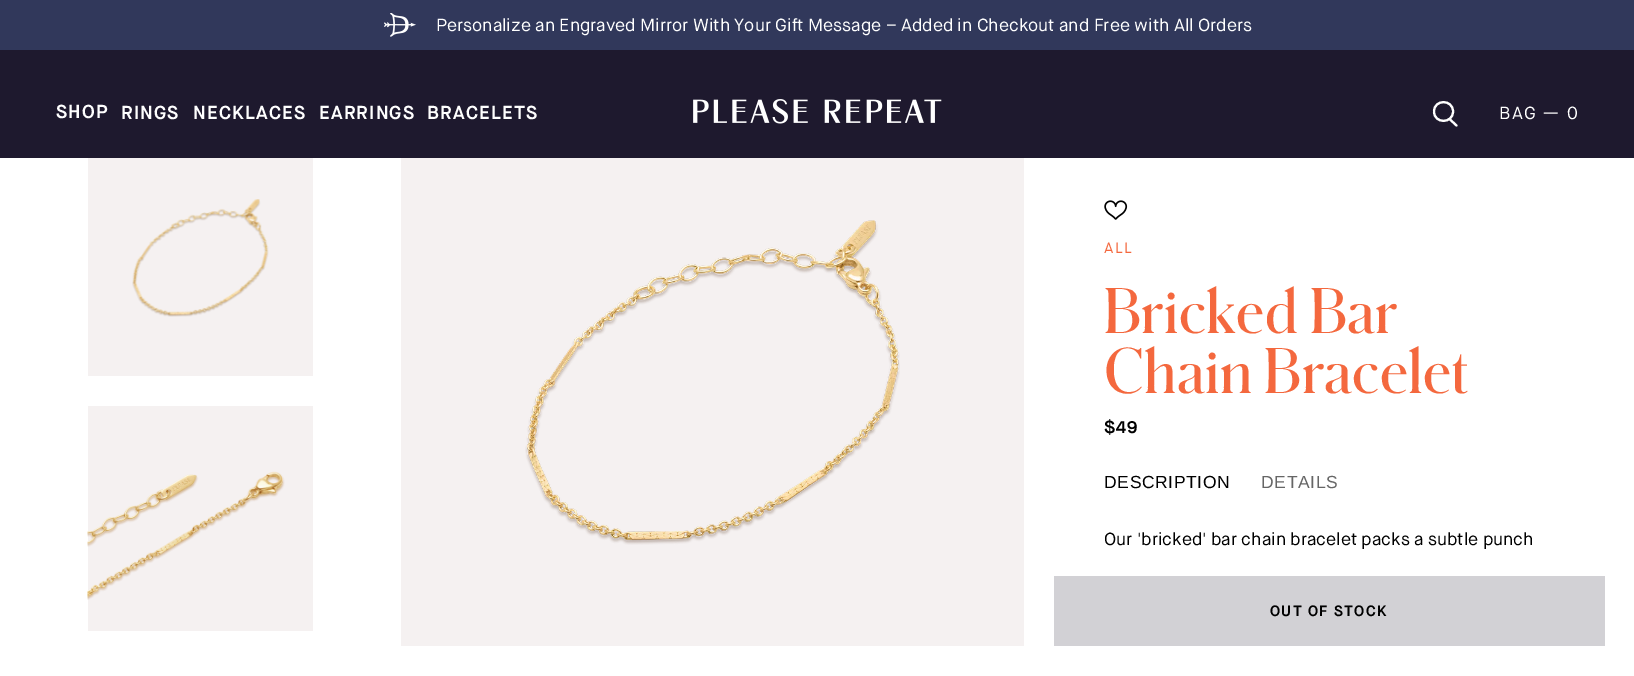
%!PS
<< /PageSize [1634 676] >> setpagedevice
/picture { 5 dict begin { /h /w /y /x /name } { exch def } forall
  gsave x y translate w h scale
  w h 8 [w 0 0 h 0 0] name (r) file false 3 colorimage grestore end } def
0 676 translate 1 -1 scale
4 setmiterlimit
1 setgray
0 0 1634 676 rectfill
0.118 0.098 0.18 setrgbcolor
0 50 1634 108 rectfill
0.192 0.22 0.357 setrgbcolor
0 0 1634 50 rectfill
(img1.rgb) 384 13 32 24 picture
/MaisonNeue-Regular [17.5 0 0 -17.5 0 0] selectfont
1 setgray
436 31 moveto (Personalize an Engraved Mirror With Your Gift Message – Added in Checkout and Free with All Orders) show
/MaisonNeue-SemiBold [18.75 0 0 -18.75 0 0] selectfont
56 118 moveto 1.25 0 (SHOP) ashow
121 119 moveto 1.25 0 (RINGS) ashow
193 119 moveto 1.25 0 (NECKLACES) ashow
319 119 moveto 1.25 0 (EARRINGS) ashow
427 119 moveto 1.25 0 (BRACELETS) ashow
(img2.rgb) 693 99 249 25 picture
2.1 setlinewidth
newpath 1453 111.5 moveto 1453 124 1434 124 1434 111.5 curveto 1434 99 1453 99 1453 111.5 curveto closepath stroke
1 setlinecap
newpath 1449.5 119 moveto 1456.5 125.5 lineto stroke
/MaisonNeue-Regular [17.5 0 0 -17.5 0 0] selectfont
1499 119 moveto 1.25 0 (BAG — 0) ashow
0.961 0.945 0.945 setrgbcolor
88 158 225 218 rectfill
(img3.rgb) 132 199 137 118 picture
88 406 225 225 rectfill
(img4.rgb) 87 471 198 129 picture
401 158 623 488 rectfill
(img5.rgb) 525 220 375 325 picture
(img6.rgb) 1104 200 24 20 picture
/MaisonNeue-Regular [15 0 0 -15 0 0] selectfont
0.957 0.408 0.243 setrgbcolor
1104 253 moveto 1.25 0 (ALL) ashow
/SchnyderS-SemiBold [60 0 0 -60 0 0] selectfont
1104 333 moveto 0.25 0 (Bricked Bar) ashow
1104 393 moveto 0.25 0 (Chain Bracelet) ashow
/MaisonNeue-SemiBold [17.5 0 0 -17.5 0 0] selectfont
0 setgray
1104 433 moveto 0.6 0 ($49) ashow
/LiberationSans-Regular [17.5 0 0 -17.5 0 0] selectfont
1104 488 moveto 0.6 0 (DESCRIPTION) ashow
0.4 setgray
1261 488 moveto 0.6 0 (DETAILS) ashow
/MaisonNeue-Regular [17.5 0 0 -17.5 0 0] selectfont
0 setgray
1104 545 moveto (Our 'bricked' bar chain bracelet packs a subtle punch) show
0.824 0.82 0.835 setrgbcolor
1054 576 551 70 rectfill
/MaisonNeue-SemiBold [15 0 0 -15 0 0] selectfont
0 setgray
1270 616 moveto 1.25 0 (OUT OF STOCK) ashow
showpage
